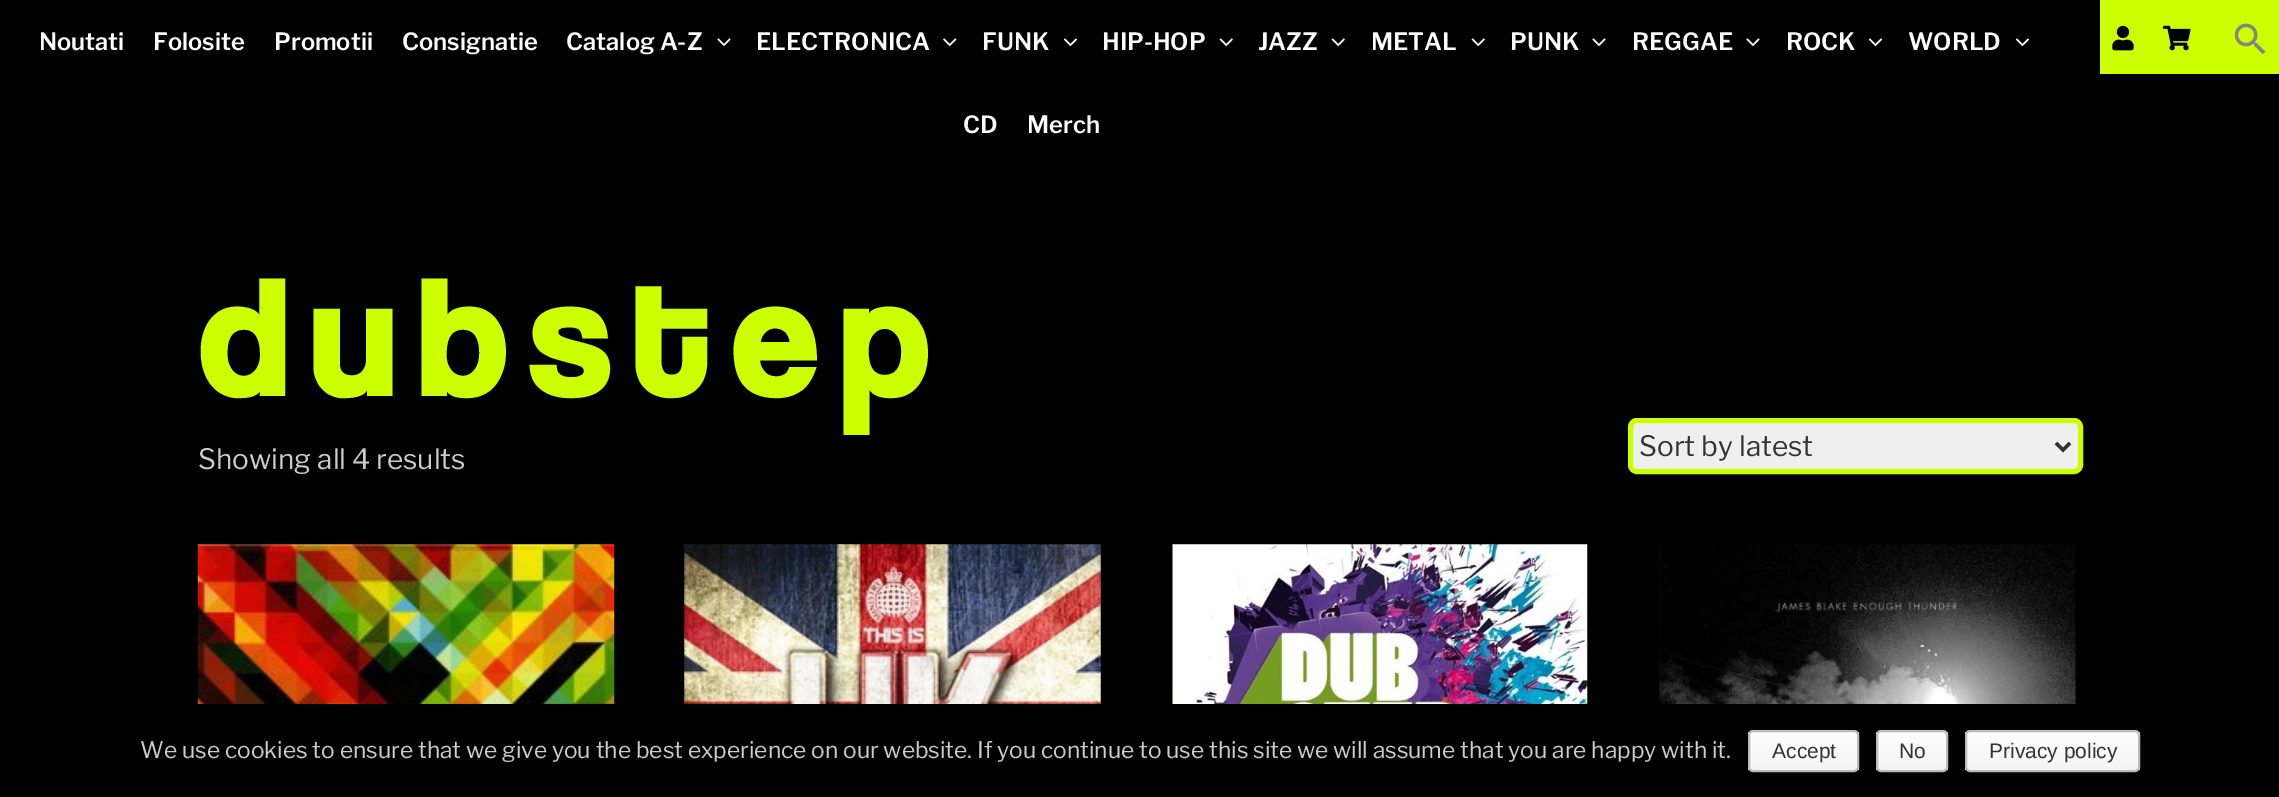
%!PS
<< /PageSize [2279 797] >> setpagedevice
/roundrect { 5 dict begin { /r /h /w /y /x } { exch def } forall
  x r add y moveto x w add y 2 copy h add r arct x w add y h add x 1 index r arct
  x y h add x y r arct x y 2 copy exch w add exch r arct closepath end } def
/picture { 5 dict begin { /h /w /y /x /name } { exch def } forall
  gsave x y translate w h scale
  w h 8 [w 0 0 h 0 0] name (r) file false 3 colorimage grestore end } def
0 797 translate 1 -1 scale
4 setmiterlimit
0 setgray
0 0 2279 797 rectfill
/LibreFranklin-SemiBold [23.75 0 0 -23.75 0 0] selectfont
1 setgray
39 50 moveto (Noutati) show
153 50 moveto (Folosite) show
274 50 moveto (Promotii) show
402 50 moveto (Consignatie) show
566 50 moveto (Catalog A-Z) show
(img1.rgb) 717 38 14 9 picture
756 50 moveto (ELECTRONICA) show
(img2.rgb) 943 38 14 9 picture
982 50 moveto (FUNK) show
(img3.rgb) 1063 38 14 9 picture
1102 50 moveto (HIP-HOP) show
(img4.rgb) 1219 38 14 9 picture
1258 50 moveto (JAZZ) show
(img4.rgb) 1331 38 14 9 picture
1371 50 moveto (METAL) show
(img4.rgb) 1471 38 14 9 picture
1510 50 moveto (PUNK) show
(img1.rgb) 1592 38 14 9 picture
1632 50 moveto (REGGAE) show
(img1.rgb) 1746 38 14 9 picture
1786 50 moveto (ROCK) show
(img3.rgb) 1868 38 14 9 picture
1908 50 moveto (WORLD) show
(img3.rgb) 2015 38 14 9 picture
963 133 moveto (CD) show
1027 133 moveto (Merch) show
0.8 1 0 setrgbcolor
2100 0 179 74 rectfill
(img5.rgb) 2112 25 22 26 picture
(img6.rgb) 2163 25 28 26 picture
(img7.rgb) 2234 23 32 32 picture
/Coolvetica-Bold [168 0 0 -168 0 0] selectfont
198 396 moveto 23.5 0 (dubstep) ashow
/LibreFranklin-Regular [28 0 0 -28 0 0] selectfont
0.8 setgray
198 469 moveto (Showing all 4 results) show
0.937 setgray
1630.5 420.5 450 51 6.5 roundrect gsave fill grestore
0.8 1 0 setrgbcolor
5 setlinewidth
stroke
0.2 setgray
3.5 setlinewidth
newpath 2056 443 moveto 2063 450 lineto 2070 443 lineto stroke
1639 456 moveto (Sort by latest) show
(img8.rgb) 197 544 418 160 picture
(img9.rgb) 684 544 417 160 picture
(img10.rgb) 1172 544 416 160 picture
(img11.rgb) 1659 544 417 160 picture
/LibreFranklin-Regular [22.75 0 0 -22.75 0 0] selectfont
0.8 setgray
140 758 moveto (We use cookies to ensure that we give you the best experience on our website. If you continue to use this site we will assume that you are happy with it.) show
gsave
1748 730 111 42 5 roundrect clip newpath
gsave newpath 1748 732 moveto 1859 732 lineto 1859 770 lineto 1748 770 lineto closepath clip newpath
<< /ShadingType 2 /ColorSpace /DeviceRGB /Coords [1803 732 1803 770] /Extend [true true] /Function << /FunctionType 2 /Domain [0 1] /C0 [0.996 0.996 0.996] /C1 [0.957 0.957 0.957] /N 1 >> >> shfill grestore
grestore
0.733 setgray
2 setlinewidth
1749 731 109 40 4 roundrect stroke
/LiberationSans-Regular [21 0 0 -21 0 0] selectfont
0.2 setgray
1772 758 moveto (Accept) show
gsave
1876 730 72 42 5 roundrect clip newpath
gsave newpath 1876 732 moveto 1948 732 lineto 1948 770 lineto 1876 770 lineto closepath clip newpath
<< /ShadingType 2 /ColorSpace /DeviceRGB /Coords [1912 732 1912 770] /Extend [true true] /Function << /FunctionType 2 /Domain [0 1] /C0 [0.996 0.996 0.996] /C1 [0.957 0.957 0.957] /N 1 >> >> shfill grestore
grestore
0.733 setgray
1877 731 70 40 4 roundrect stroke
0.2 setgray
1899 758 moveto (No) show
gsave
1965 730 175 42 5 roundrect clip newpath
gsave newpath 1965 732 moveto 2140 732 lineto 2140 770 lineto 1965 770 lineto closepath clip newpath
<< /ShadingType 2 /ColorSpace /DeviceRGB /Coords [2053 732 2053 770] /Extend [true true] /Function << /FunctionType 2 /Domain [0 1] /C0 [0.996 0.996 0.996] /C1 [0.957 0.957 0.957] /N 1 >> >> shfill grestore
grestore
0.733 setgray
1966 731 173 40 4 roundrect stroke
0.2 setgray
1989 758 moveto (Privacy policy) show
showpage
